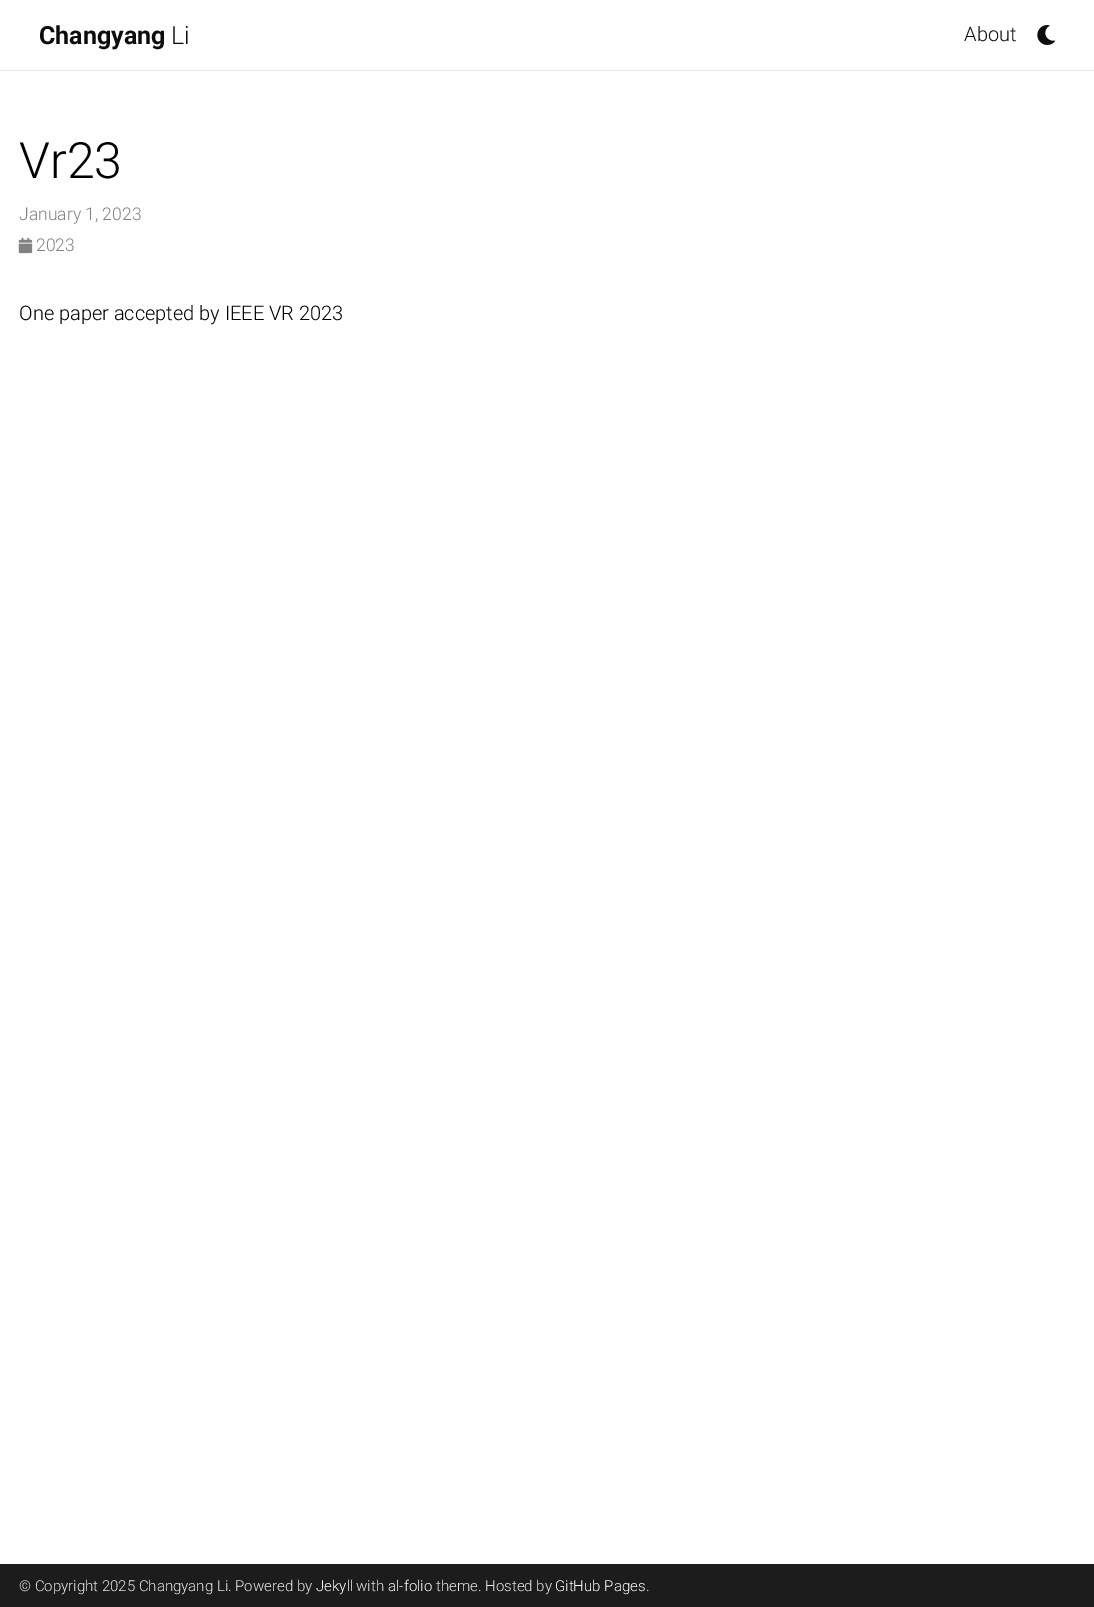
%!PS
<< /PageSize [1094 1607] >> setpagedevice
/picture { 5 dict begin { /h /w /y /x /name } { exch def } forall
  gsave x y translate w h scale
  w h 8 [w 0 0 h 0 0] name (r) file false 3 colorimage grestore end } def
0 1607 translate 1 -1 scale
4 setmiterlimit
1 setgray
0 0 1094 1607 rectfill
0.906 setgray
0 70 1094 1 rectfill
/Roboto-Bold [25 0 0 -25 0 0] selectfont
0.051 setgray
39 44 moveto (Changyang) show
/Roboto-Light [25 0 0 -25 0 0] selectfont
171 44 moveto (Li) show
/Roboto-Light [20 0 0 -20 0 0] selectfont
964 41 moveto (About) show
(img1.rgb) 1037 25 19 20 picture
/Roboto-Light [50 0 0 -50 0 0] selectfont
0 setgray
19 178 moveto (Vr23) show
/Roboto-Light [17.5 0 0 -17.5 0 0] selectfont
0.51 setgray
19 220 moveto (January 1, 2023) show
(img2.rgb) 18 237 15 17 picture
36 251 moveto (2023) show
/Roboto-Light [20 0 0 -20 0 0] selectfont
0 setgray
19 320 moveto (One paper accepted by IEEE VR 2023) show
0.11 0.11 0.114 setrgbcolor
0 1564 1094 43 rectfill
/Roboto-Light [15 0 0 -15 0 0] selectfont
0.91 setgray
19 1591 moveto (© Copyright 2025 Changyang Li. Powered by) show
1 setgray
316 1591 moveto (Jekyll) show
0.91 setgray
356 1591 moveto (with) show
1 setgray
388 1591 moveto (al-folio) show
0.91 setgray
436 1591 moveto (theme. Hosted by) show
1 setgray
555 1591 moveto (GitHub Pages) show
0.91 setgray
646 1591 moveto (.) show
showpage
